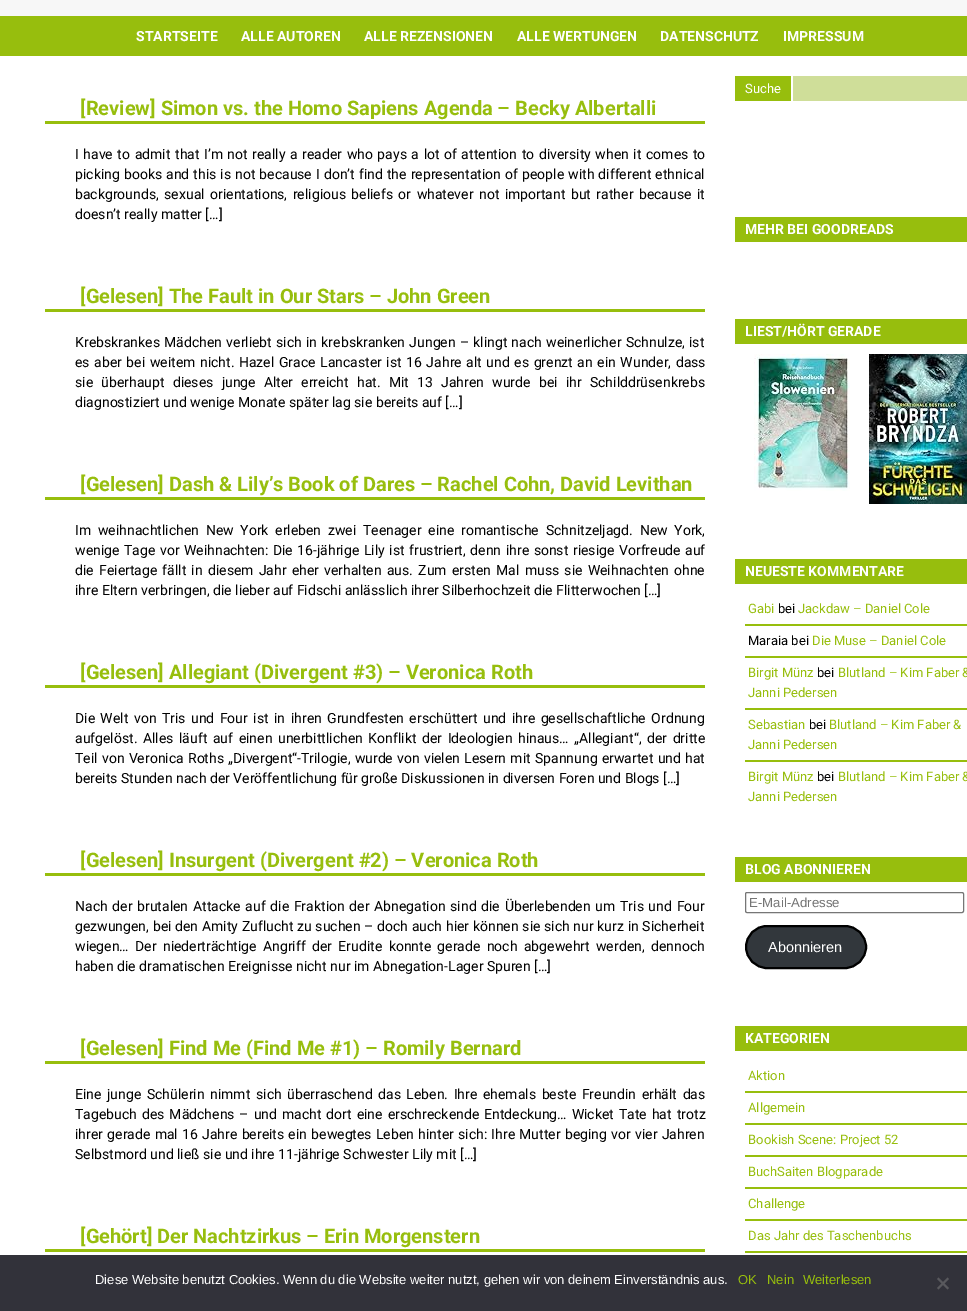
%!PS
<< /PageSize [967 1311] >> setpagedevice
/roundrect { 5 dict begin { /r /h /w /y /x } { exch def } forall
  x r add y moveto x w add y 2 copy h add r arct x w add y h add x 1 index r arct
  x y h add x y r arct x y 2 copy exch w add exch r arct closepath end } def
/picture { 5 dict begin { /h /w /y /x /name } { exch def } forall
  gsave x y translate w h scale
  w h 8 [w 0 0 h 0 0] name (r) file false 3 colorimage grestore end } def
0 1311 translate 1 -1 scale
4 setmiterlimit
1 setgray
0 0 967 1311 rectfill
0.969 setgray
0 0 967 16 rectfill
0.592 0.745 0.051 setrgbcolor
0 16 967 40 rectfill
/Roboto-Bold [14 0 0 -14 0 0] selectfont
1 setgray
136 41 moveto (STARTSEITE) show
241 41 moveto (ALLE AUTOREN) show
364 41 moveto (ALLE REZENSIONEN) show
517 41 moveto (ALLE WERTUNGEN) show
660 41 moveto (DATENSCHUTZ) show
783 41 moveto (IMPRESSUM) show
0.592 0.745 0.051 setrgbcolor
45 121 660 3 rectfill
/Roboto-Bold [20 0 0 -20 0 0] selectfont
80 115 moveto ([Review] Simon vs. the Homo Sapiens Agenda – Becky Albertalli) show
/Roboto-Regular [14 0 0 -14 0 0] selectfont
0 setgray
75 159 moveto 1.1 0 32 (I have to admit that I’m not really a reader who pays a lot of attention to diversity when it comes to) widthshow
75 179 moveto 0.6 0 32 (picking books and this is not because I don’t find the representation of people with different ethnical) widthshow
75 199 moveto 2 0 32 (backgrounds, sexual orientations, religious beliefs or whatever not important but rather because it) widthshow
75 219 moveto (doesn’t really matter […]) show
0.592 0.745 0.051 setrgbcolor
45 309 660 3 rectfill
/Roboto-Bold [20 0 0 -20 0 0] selectfont
80 303 moveto ([Gelesen] The Fault in Our Stars – John Green) show
/Roboto-Regular [14 0 0 -14 0 0] selectfont
0 setgray
75 347 moveto 0.75 0 32 (Krebskrankes Mädchen verliebt sich in krebskranken Jungen – klingt nach weinerlicher Schnulze, ist) widthshow
75 367 moveto 1.1 0 32 (es aber bei weitem nicht. Hazel Grace Lancaster ist 16 Jahre alt und es grenzt an ein Wunder, dass) widthshow
75 387 moveto 4.75 0 32 (sie überhaupt dieses junge Alter erreicht hat. Mit 13 Jahren wurde bei ihr Schilddrüsenkrebs) widthshow
75 407 moveto (diagnostiziert und wenige Monate später lag sie bereits auf […]) show
0.592 0.745 0.051 setrgbcolor
45 497 660 3 rectfill
/Roboto-Bold [20 0 0 -20 0 0] selectfont
80 491 moveto ([Gelesen] Dash & Lily’s Book of Dares – Rachel Cohn, David Levithan) show
/Roboto-Regular [14 0 0 -14 0 0] selectfont
0 setgray
75 535 moveto 3.25 0 32 (Im weihnachtlichen New York erleben zwei Teenager eine romantische Schnitzeljagd. New York,) widthshow
75 555 moveto 1.1 0 32 (wenige Tage vor Weihnachten: Die 16-jährige Lily ist frustriert, denn ihre sonst riesige Vorfreude auf) widthshow
75 575 moveto 1.75 0 32 (die Feiertage fällt in diesem Jahr eher verhalten aus. Zum ersten Mal muss sie Weihnachten ohne) widthshow
75 595 moveto (ihre Eltern verbringen, die lieber auf Fidschi anlässlich ihrer Silberhochzeit die Flitterwochen […]) show
0.592 0.745 0.051 setrgbcolor
45 685 660 3 rectfill
/Roboto-Bold [20 0 0 -20 0 0] selectfont
80 679 moveto ([Gelesen] Allegiant \(Divergent #3\) – Veronica Roth) show
/Roboto-Regular [14 0 0 -14 0 0] selectfont
0 setgray
75 723 moveto 2 0 32 (Die Welt von Tris und Four ist in ihren Grundfesten erschüttert und ihre gesellschaftliche Ordnung) widthshow
75 743 moveto 2.1 0 32 (aufgelöst. Alles läuft auf einen unerbittlichen Konflikt der Ideologien hinaus… „Allegiant“, der dritte) widthshow
75 763 moveto 0.75 0 32 (Teil von Veronica Roths „Divergent“-Trilogie, wurde von vielen Lesern mit Spannung erwartet und hat) widthshow
75 783 moveto (bereits Stunden nach der Veröffentlichung für große Diskussionen in diversen Foren und Blogs […]) show
0.592 0.745 0.051 setrgbcolor
45 873 660 3 rectfill
/Roboto-Bold [20 0 0 -20 0 0] selectfont
80 867 moveto ([Gelesen] Insurgent \(Divergent #2\) – Veronica Roth) show
/Roboto-Regular [14 0 0 -14 0 0] selectfont
0 setgray
75 911 moveto 1.25 0 32 (Nach der brutalen Attacke auf die Fraktion der Abnegation sind die Überlebenden um Tris und Four) widthshow
75 931 moveto 0.25 0 32 (gezwungen, bei den Amity Zuflucht zu suchen – doch auch hier können sie sich nur kurz in Sicherheit) widthshow
75 951 moveto 2.9 0 32 (wiegen… Der niederträchtige Angriff der Erudite konnte gerade noch abgewehrt werden, dennoch) widthshow
75 971 moveto (haben die dramatischen Ereignisse nicht nur im Abnegation-Lager Spuren […]) show
0.592 0.745 0.051 setrgbcolor
45 1061 660 3 rectfill
/Roboto-Bold [20 0 0 -20 0 0] selectfont
80 1055 moveto ([Gelesen] Find Me \(Find Me #1\) – Romily Bernard) show
/Roboto-Regular [14 0 0 -14 0 0] selectfont
0 setgray
75 1099 moveto 2.1 0 32 (Eine junge Schülerin nimmt sich überraschend das Leben. Ihre ehemals beste Freundin erhält das) widthshow
75 1119 moveto 1.5 0 32 (Tagebuch des Mädchens – und macht dort eine erschreckende Entdeckung… Wicket Tate hat trotz) widthshow
75 1139 moveto 0.8 0 32 (ihrer gerade mal 16 Jahre bereits ein bewegtes Leben hinter sich: Ihre Mutter beging vor vier Jahren) widthshow
75 1159 moveto (Selbstmord und ließ sie und ihre 11-jährige Schwester Lily mit […]) show
0.592 0.745 0.051 setrgbcolor
45 1249 660 3 rectfill
/Roboto-Bold [20 0 0 -20 0 0] selectfont
80 1243 moveto ([Gehört] Der Nachtzirkus – Erin Morgenstern) show
735 76 56 25 rectfill
/Roboto-Regular [13 0 0 -13 0 0] selectfont
1 setgray
745 93 moveto (Suche) show
0.812 0.871 0.6 setrgbcolor
793 76 174 25 rectfill
0.592 0.745 0.051 setrgbcolor
735 217 232 25 rectfill
/Roboto-Bold [14 0 0 -14 0 0] selectfont
1 setgray
745 234 moveto (MEHR BEI GOODREADS) show
0.592 0.745 0.051 setrgbcolor
735 319 232 25 rectfill
1 setgray
745 336 moveto (LIEST/HÖRT GERADE) show
(img1.rgb) 754 354 96 137 picture
(img2.rgb) 869 354 98 150 picture
0.592 0.745 0.051 setrgbcolor
735 559 232 25 rectfill
1 setgray
745 576 moveto (NEUESTE KOMMENTARE) show
0.592 0.745 0.051 setrgbcolor
745 624 222 2 rectfill
/Roboto-Regular [13 0 0 -13 0 0] selectfont
748 613 moveto (Gabi) show
0 setgray
778 613 moveto (bei) show
0.592 0.745 0.051 setrgbcolor
798 613 moveto (Jackdaw – Daniel Cole) show
745 656 222 2 rectfill
0 setgray
748 645 moveto (Maraia bei) show
0.592 0.745 0.051 setrgbcolor
812 645 moveto (Die Muse – Daniel Cole) show
745 708 222 2 rectfill
748 677 moveto (Birgit Münz) show
0 setgray
817 677 moveto (bei) show
0.592 0.745 0.051 setrgbcolor
838 677 moveto (Blutland – Kim Faber &) show
748 697 moveto (Janni Pedersen) show
745 760 222 2 rectfill
748 729 moveto (Sebastian) show
0 setgray
809 729 moveto (bei) show
0.592 0.745 0.051 setrgbcolor
829 729 moveto (Blutland – Kim Faber &) show
748 749 moveto (Janni Pedersen) show
748 781 moveto (Birgit Münz) show
0 setgray
817 781 moveto (bei) show
0.592 0.745 0.051 setrgbcolor
838 781 moveto (Blutland – Kim Faber &) show
748 801 moveto (Janni Pedersen) show
735 857 232 25 rectfill
/Roboto-Bold [14 0 0 -14 0 0] selectfont
1 setgray
745 874 moveto (BLOG ABONNIEREN) show
0.463 setgray
745.5 892.5 218 20 1.5 roundrect stroke
/LiberationSans-Regular [13.25 0 0 -13.25 0 0] selectfont
0.459 setgray
749 907 moveto (E-Mail-Adresse) show
0.196 0.216 0.235 setrgbcolor
746 926 120 42 21 roundrect gsave fill grestore
0 setgray
2 setlinewidth
stroke
/LiberationSans-Regular [14.5 0 0 -14.5 0 0] selectfont
1 setgray
768 952 moveto (Abonnieren) show
0.592 0.745 0.051 setrgbcolor
735 1026 232 25 rectfill
/Roboto-Bold [14 0 0 -14 0 0] selectfont
1 setgray
745 1043 moveto (KATEGORIEN) show
0.592 0.745 0.051 setrgbcolor
745 1091 222 2 rectfill
/Roboto-Regular [13 0 0 -13 0 0] selectfont
748 1080 moveto (Aktion) show
745 1123 222 2 rectfill
748 1112 moveto (Allgemein) show
745 1155 222 2 rectfill
748 1144 moveto (Bookish Scene: Project 52) show
745 1187 222 2 rectfill
748 1176 moveto (BuchSaiten Blogparade) show
745 1219 222 2 rectfill
748 1208 moveto (Challenge) show
745 1251 222 2 rectfill
748 1240 moveto (Das Jahr des Taschenbuchs) show
0.196 0.196 0.227 setrgbcolor
0 1255 967 56 rectfill
/LiberationSans-Regular [13 0 0 -13 0 0] selectfont
1 setgray
95 1284 moveto (Diese Website benutzt Cookies. Wenn du die Website weiter nutzt, gehen wir von deinem Einverständnis aus.) show
0.592 0.745 0.051 setrgbcolor
738 1284 moveto (OK) show
767 1284 moveto (Nein) show
803 1284 moveto (Weiterlesen) show
0.349 0.349 0.365 setrgbcolor
newpath 947.5 1277.5 moveto 949 1279 lineto 938.5 1289.5 lineto 937 1288 lineto closepath fill
newpath 937 1279 moveto 938.5 1277.5 lineto 949 1288 lineto 947.5 1289.5 lineto closepath fill
showpage
